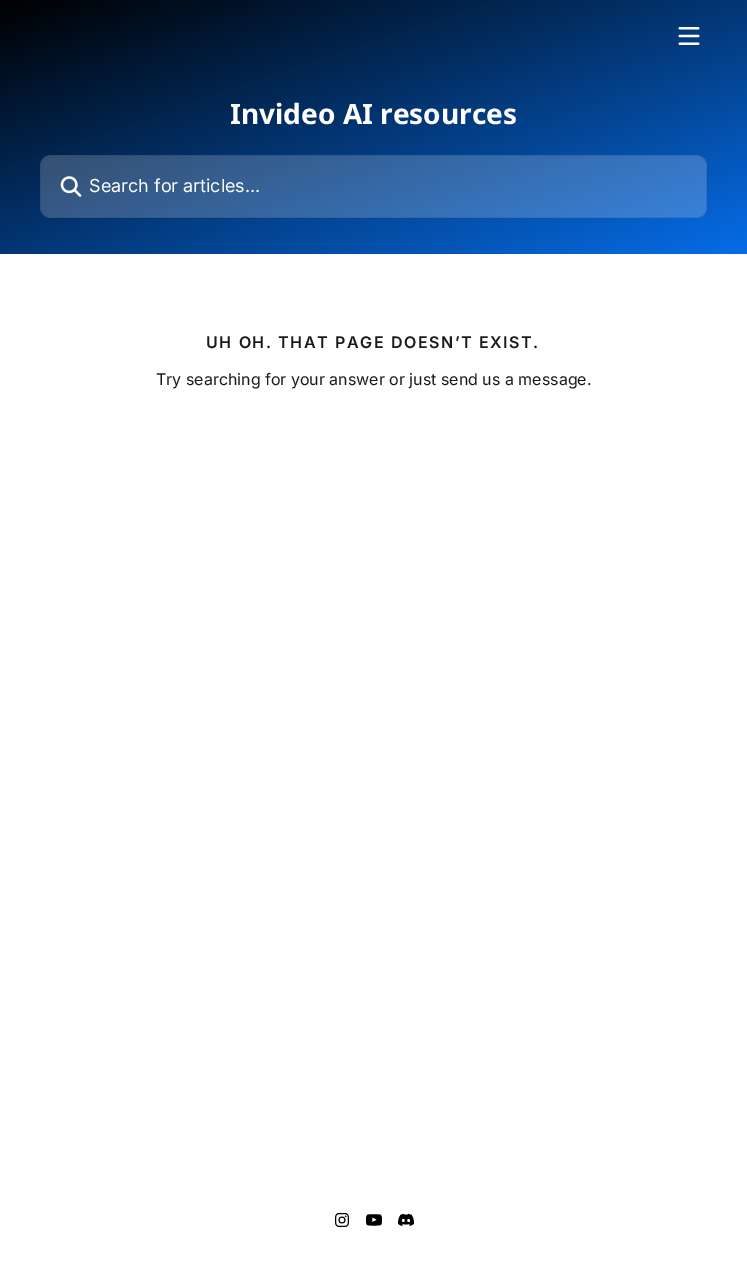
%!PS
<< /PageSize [747 1280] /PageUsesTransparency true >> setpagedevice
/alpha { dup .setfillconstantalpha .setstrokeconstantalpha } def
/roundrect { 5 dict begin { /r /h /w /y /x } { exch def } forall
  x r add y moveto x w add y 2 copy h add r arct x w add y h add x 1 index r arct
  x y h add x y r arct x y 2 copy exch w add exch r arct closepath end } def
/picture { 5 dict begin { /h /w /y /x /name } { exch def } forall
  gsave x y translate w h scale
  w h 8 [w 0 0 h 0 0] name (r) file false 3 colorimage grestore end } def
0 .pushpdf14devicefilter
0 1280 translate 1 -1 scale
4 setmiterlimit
1 setgray
0 0 747 1280 rectfill
gsave newpath 0 0 moveto 747 0 lineto 747 254 lineto 0 254 lineto closepath clip newpath
<< /ShadingType 2 /ColorSpace /DeviceRGB /Coords [296 -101 451 355] /Extend [true true] /Function << /FunctionType 2 /Domain [0 1] /C0 [0 0 0] /C1 [0.024 0.427 0.91] /N 1 >> >> shfill grestore
(img1.rgb) 678 27 22 18 picture
/NotoSans-Bold [28 0 0 -28 0 0] selectfont
230 124 moveto (Invideo AI resources) show
0.2 alpha
40 155 667 63 11 roundrect fill
0.08 alpha
0 setgray
40.5 155.5 666 62 10.5 roundrect stroke
1 alpha
(img2.rgb) 60 176 22 21 picture
/Inter-Regular [18 0 0 -18 0 0] selectfont
1 setgray
89 192 moveto (Search for articles...) show
/Inter-SemiBold [16 0 0 -16 0 0] selectfont
0.102 setgray
206 348 moveto 1.6 0 (UH OH. THAT PAGE DOESN’T EXIST.) ashow
/Inter-Regular [16 0 0 -16 0 0] selectfont
156 385 moveto (Try searching for your answer or just send us a message.) show
(img3.rgb) 335 1213 14 14 picture
(img4.rgb) 366 1214 16 12 picture
(img5.rgb) 398 1213 16 13 picture
.poppdf14devicefilter showpage
